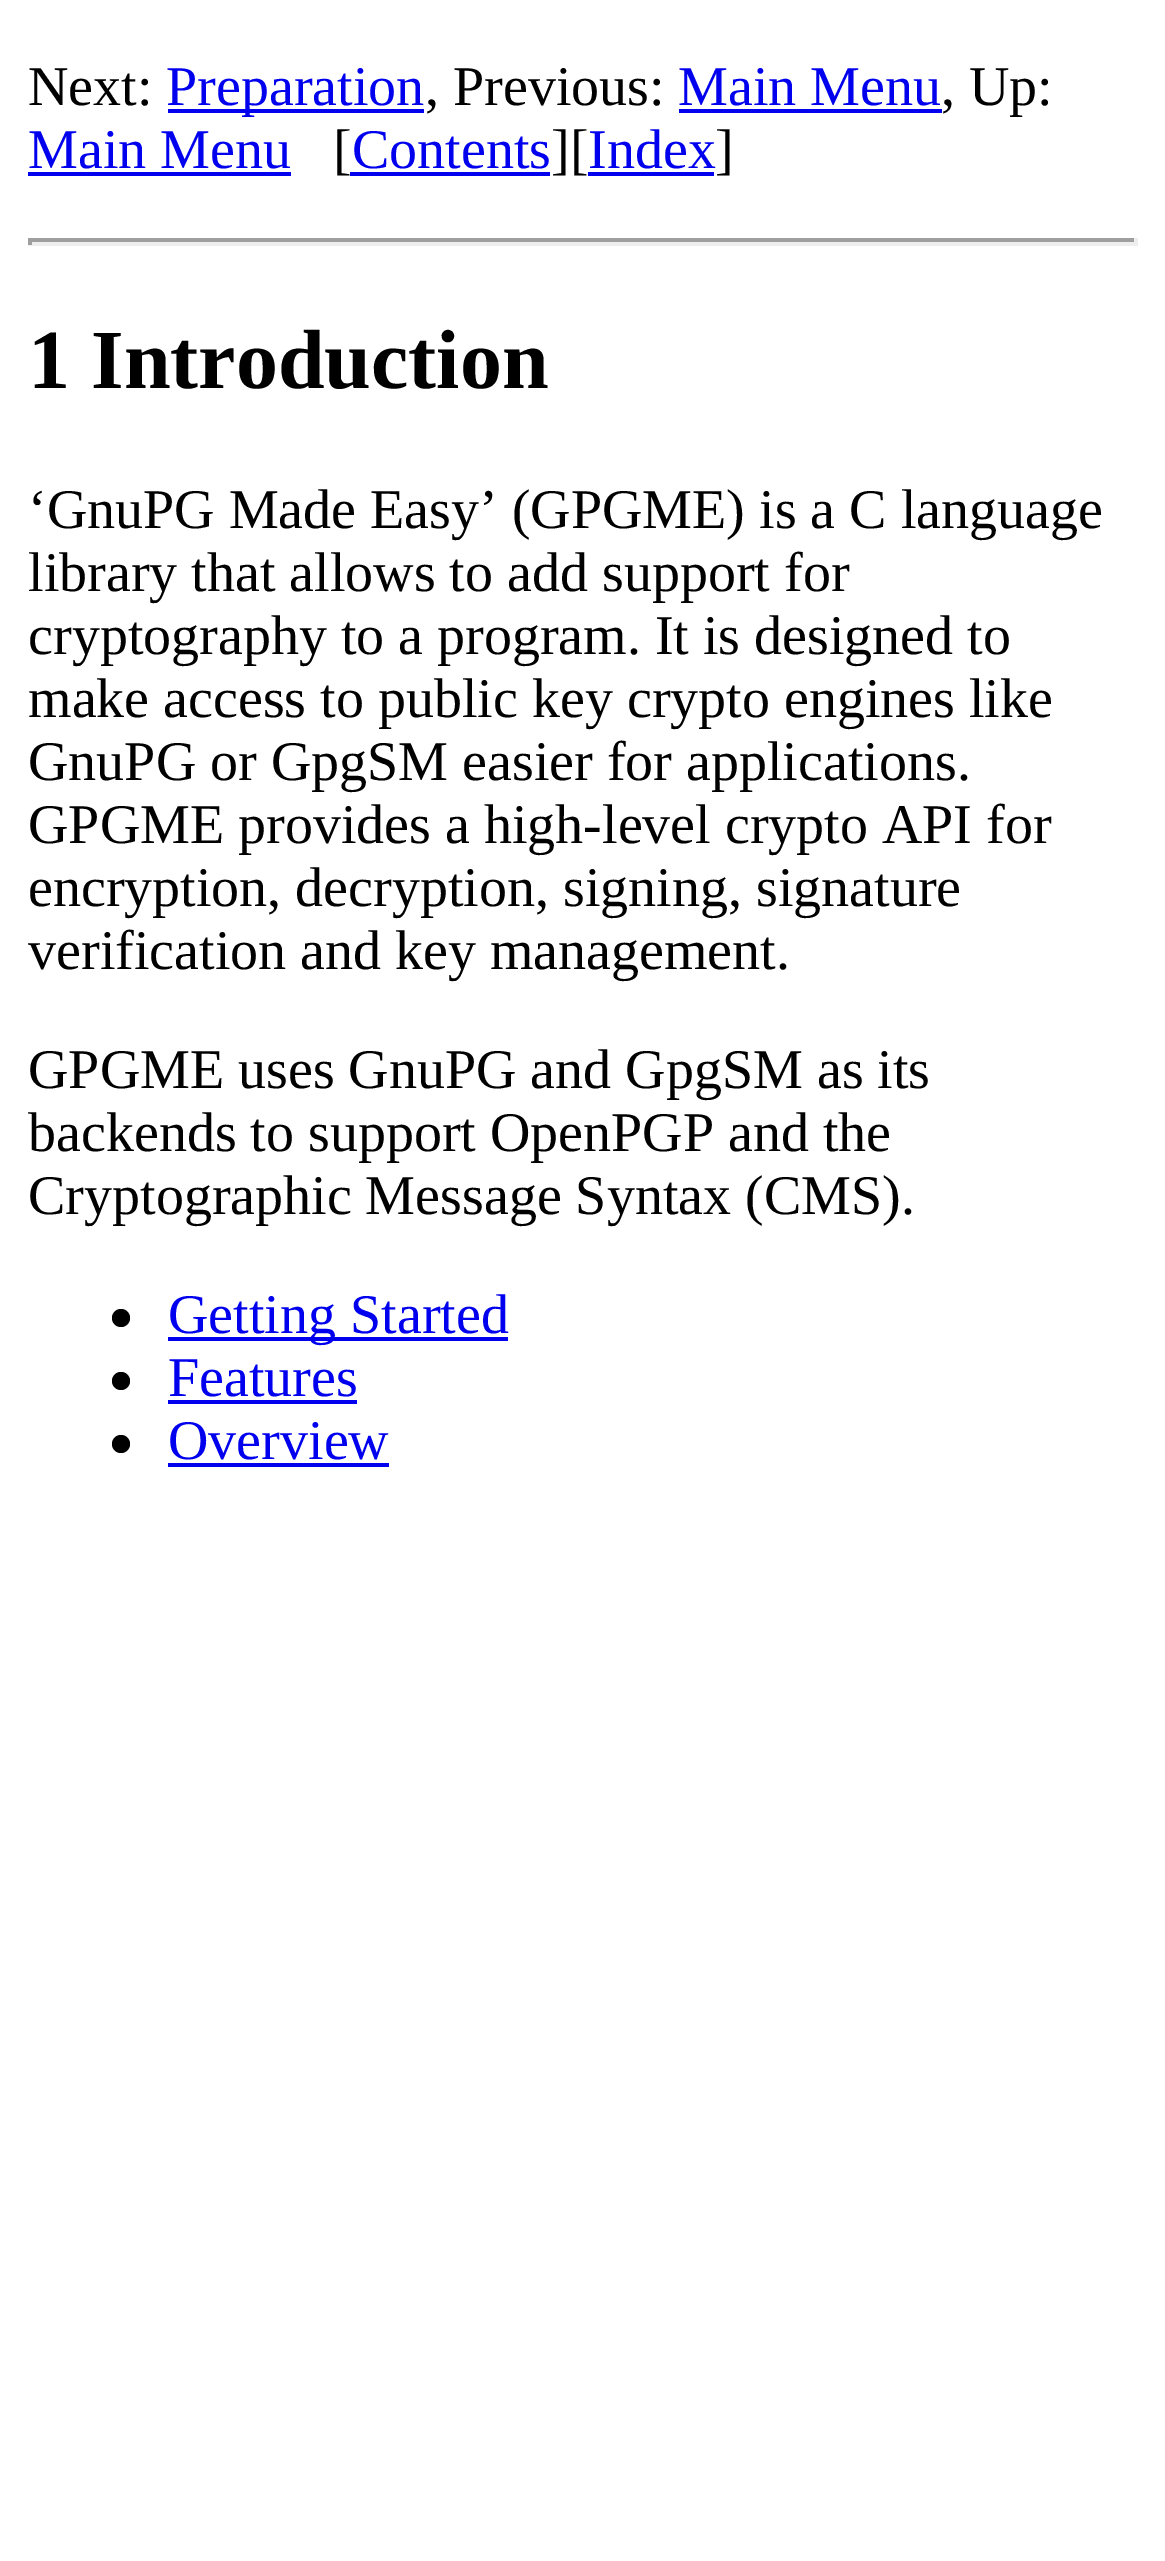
%!PS
<< /PageSize [1165 2561] >> setpagedevice
0 2561 translate 1 -1 scale
4 setmiterlimit
1 setgray
0 0 1165 2561 rectfill
/LiberationSerif-Regular [56 0 0 -56 0 0] selectfont
0 setgray
28 105 moveto (Next:) show
0 0 0.933 setrgbcolor
168 109 256 4 rectfill
166 105 moveto (Preparation) show
0 setgray
425 105 moveto (, Previous:) show
0 0 0.933 setrgbcolor
678 105 moveto (Main Menu) show
679 109 263 4 rectfill
0 setgray
941 105 moveto (, Up:) show
0 0 0.933 setrgbcolor
28 168 moveto (Main Menu) show
28 172 263 4 rectfill
0 setgray
333 168 moveto ([) show
0 0 0.933 setrgbcolor
352 168 moveto (Contents) show
350 172 200 4 rectfill
0 setgray
551 168 moveto (][) show
0 0 0.933 setrgbcolor
588 168 moveto (Index) show
588 172 126 4 rectfill
0 setgray
715 168 moveto (]) show
0.624 setgray
28 238 1110 4 rectfill
0.933 setgray
1134 238 4 7 rectfill
28 242 1110 4 rectfill
0.624 setgray
28 238 4 7 rectfill
/LiberationSerif-Bold [84 0 0 -84 0 0] selectfont
0 setgray
28 388 moveto (1 Introduction) show
/LiberationSerif-Regular [56 0 0 -56 0 0] selectfont
28 528 moveto (‘GnuPG Made Easy’ \(GPGME\) is a C language) show
28 591 moveto (library that allows to add support for) show
28 654 moveto (cryptography to a program. It is designed to) show
28 717 moveto (make access to public key crypto engines like) show
28 780 moveto (GnuPG or GpgSM easier for applications.) show
28 843 moveto (GPGME provides a high-level crypto API for) show
28 906 moveto (encryption, decryption, signing, signature) show
28 969 moveto (verification and key management.) show
28 1088 moveto (GPGME uses GnuPG and GpgSM as its) show
28 1151 moveto (backends to support OpenPGP and the) show
28 1214 moveto (Cryptographic Message Syntax \(CMS\).) show
newpath 121 1318 9 0 360 arc closepath fill
0 0 0.933 setrgbcolor
168 1337 340 4 rectfill
168 1333 moveto (Getting Started) show
0 setgray
newpath 121 1381 9 0 360 arc closepath fill
0 0 0.933 setrgbcolor
168 1396 moveto (Features) show
168 1400 189 4 rectfill
0 setgray
newpath 121 1444 9 0 360 arc closepath fill
0 0 0.933 setrgbcolor
168 1459 moveto (Overview) show
168 1463 221 4 rectfill
showpage
